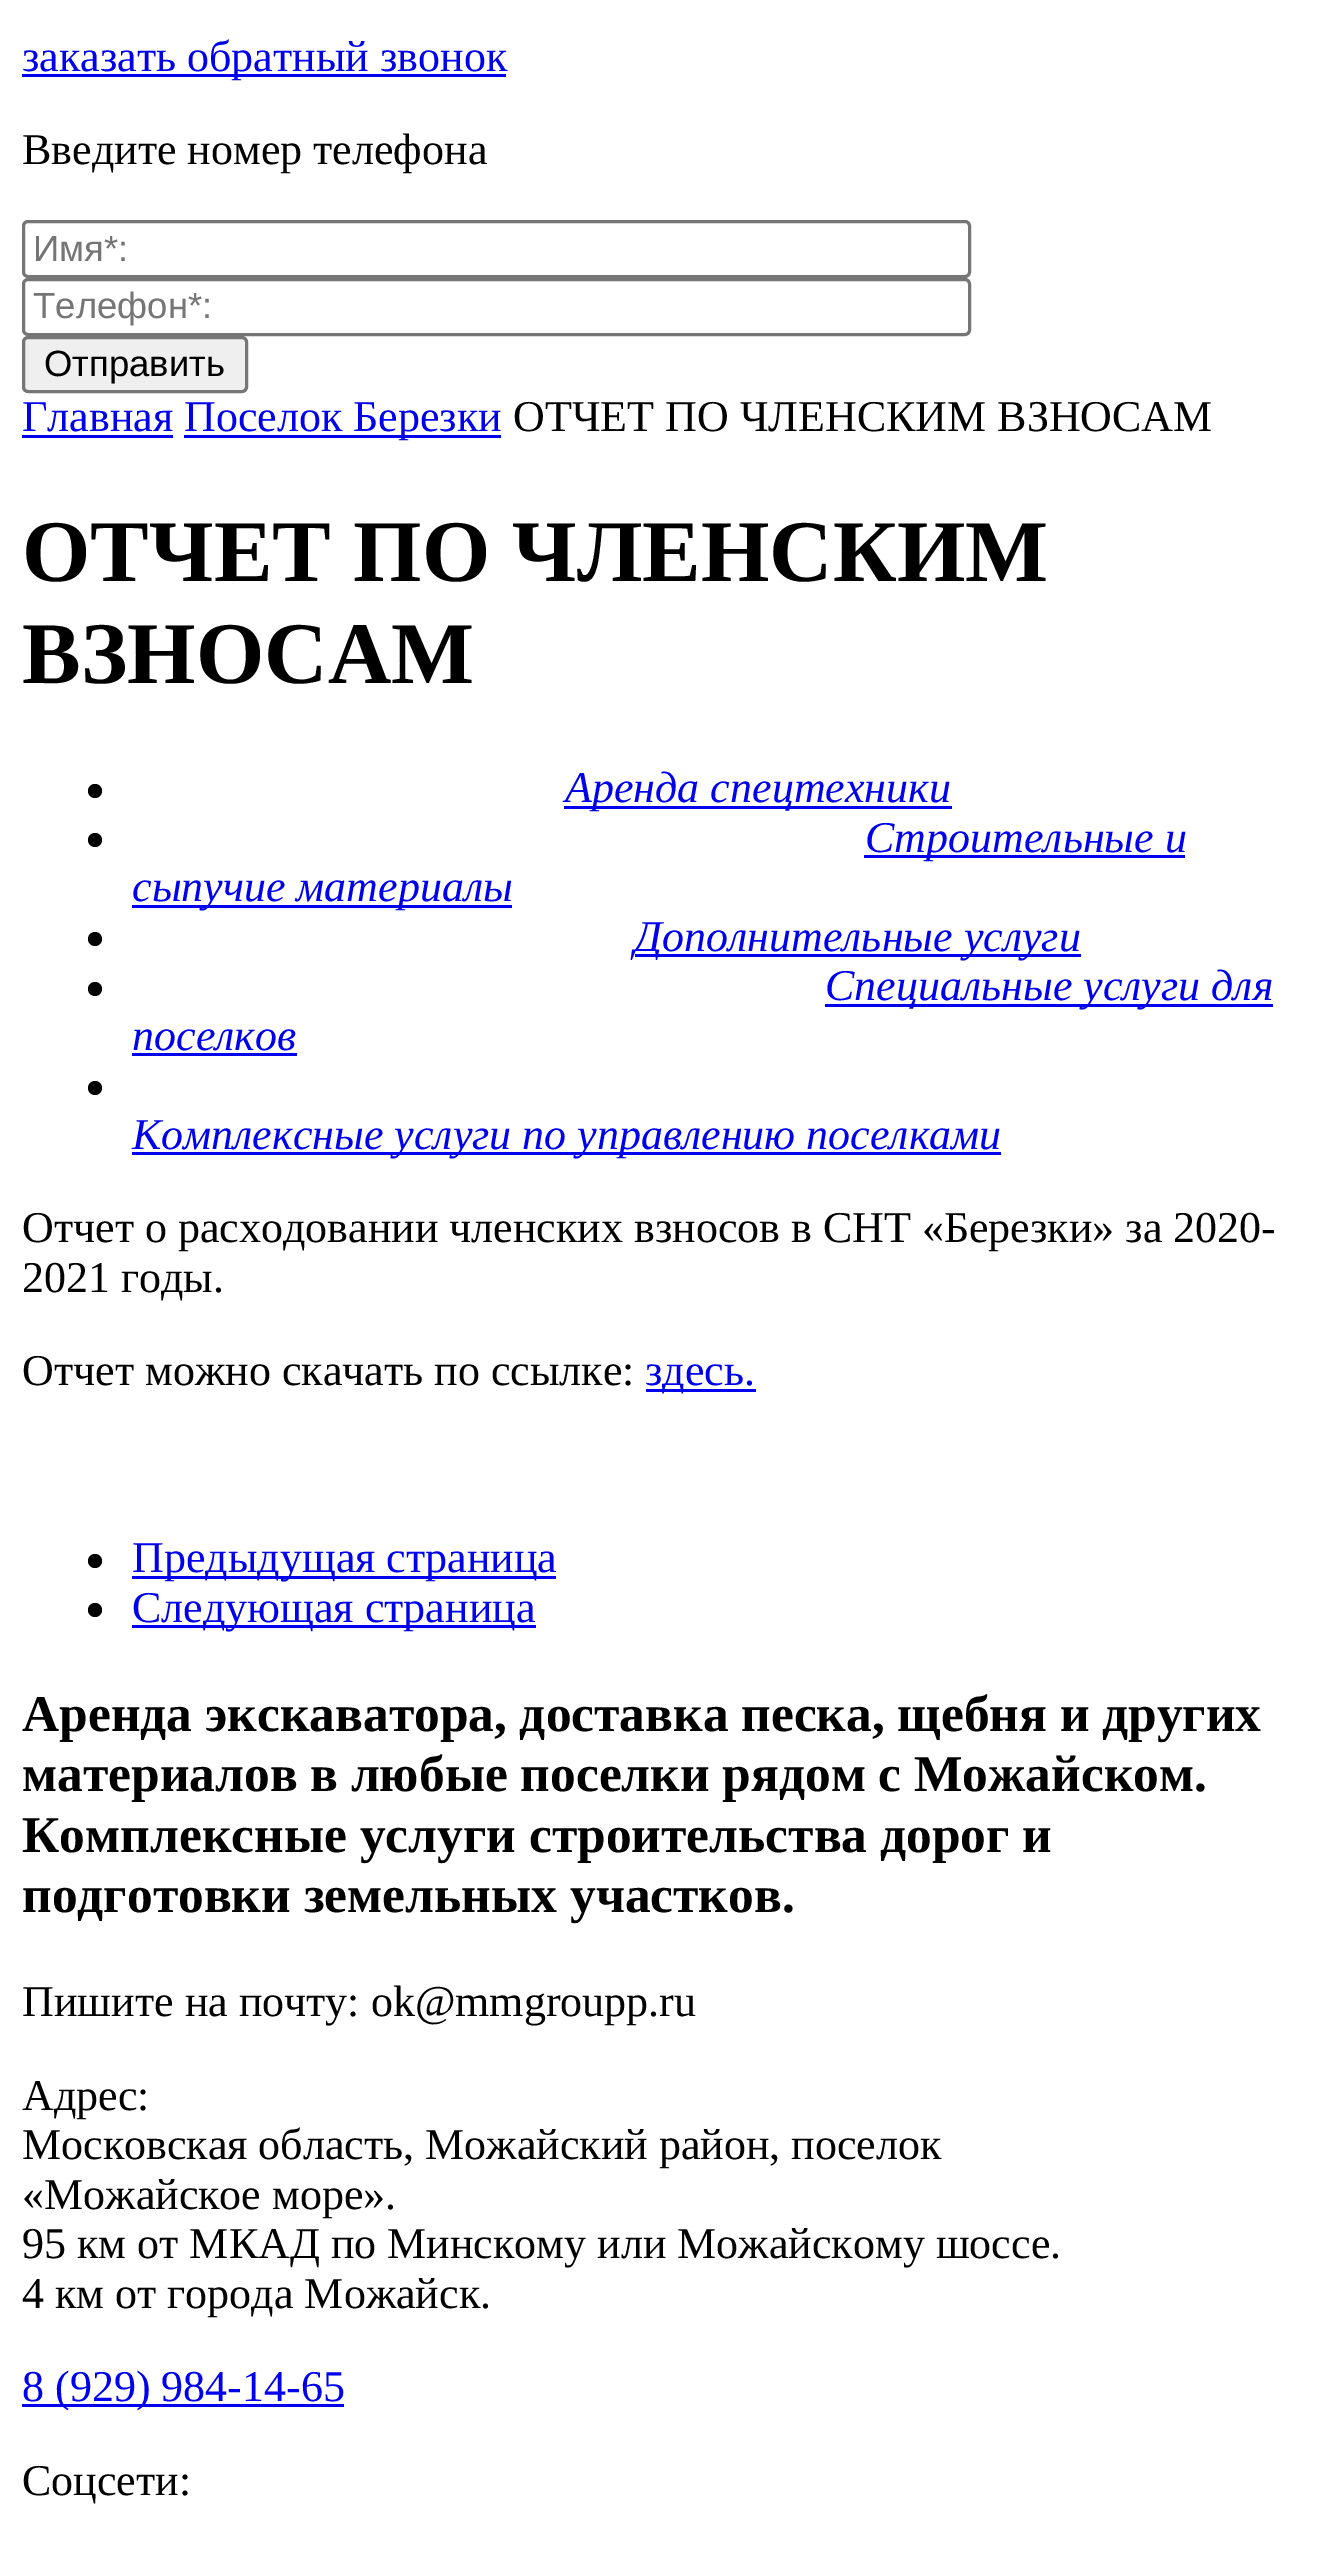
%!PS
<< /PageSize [1326 2570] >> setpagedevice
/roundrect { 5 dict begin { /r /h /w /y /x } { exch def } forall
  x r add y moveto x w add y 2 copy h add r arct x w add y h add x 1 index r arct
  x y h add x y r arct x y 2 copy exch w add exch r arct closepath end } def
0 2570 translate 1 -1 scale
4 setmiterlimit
1 setgray
0 0 1326 2570 rectfill
0 0 0.933 setrgbcolor
22 74 484 3 rectfill
/LiberationSerif-Regular [44 0 0 -44 0 0] selectfont
22 71 moveto (заказать обратный звонок) show
0 setgray
22 164 moveto (Введите номер телефона) show
0.463 setgray
3 setlinewidth
23.5 221.5 946 55 4.5 roundrect stroke
/LiberationSans-Regular [36.5 0 0 -36.5 0 0] selectfont
0.459 setgray
33 261 moveto (Имя*:) show
0.463 setgray
23.5 279.5 946 55 4.5 roundrect stroke
0.459 setgray
33 318 moveto (Телефон*:) show
0.937 setgray
23.5 337.5 223 54 4.5 roundrect gsave fill grestore
0.463 setgray
stroke
0 setgray
44 376 moveto (Отправить) show
/LiberationSerif-Regular [44 0 0 -44 0 0] selectfont
0 0 0.933 setrgbcolor
22 431 moveto (Главная) show
22 435 151 3 rectfill
184 435 317 3 rectfill
184 431 moveto (Поселок Березки) show
0 setgray
513 431 moveto (ОТЧЕТ ПО ЧЛЕНСКИМ ВЗНОСАМ) show
/LiberationSerif-Bold [88 0 0 -88 0 0] selectfont
22 581 moveto (ОТЧЕТ ПО ЧЛЕНСКИМ) show
22 683 moveto (ВЗНОСАМ) show
newpath 95 791 7 0 360 arc closepath fill
0 0 0.933 setrgbcolor
564 806 388 3 rectfill
/LiberationSerif-Italic [44 0 0 -44 0 0] selectfont
565 802 moveto (Аренда спецтехники) show
0 setgray
newpath 95 840 7 0 360 arc closepath fill
0 0 0.933 setrgbcolor
864 855 321 3 rectfill
865 852 moveto (Строительные и) show
132 905 380 3 rectfill
132 901 moveto (сыпучие материалы) show
0 setgray
newpath 95 939 7 0 360 arc closepath fill
0 0 0.933 setrgbcolor
635 954 446 3 rectfill
634 951 moveto (Дополнительные услуги) show
0 setgray
newpath 95 989 7 0 360 arc closepath fill
0 0 0.933 setrgbcolor
825 1004 448 3 rectfill
825 1000 moveto (Специальные услуги для) show
132 1050 moveto (поселков) show
132 1053 165 3 rectfill
0 setgray
newpath 95 1088 7 0 360 arc closepath fill
0 0 0.933 setrgbcolor
132 1152 869 3 rectfill
132 1149 moveto (Комплексные услуги по управлению поселками) show
/LiberationSerif-Regular [44 0 0 -44 0 0] selectfont
0 setgray
22 1242 moveto (Отчет о расходовании членских взносов в СНТ «Березки» за 2020-) show
22 1292 moveto (2021 годы.) show
22 1385 moveto (Отчет можно скачать по ссылке:) show
0 0 0.933 setrgbcolor
646 1389 110 3 rectfill
645 1385 moveto (здесь.) show
0 setgray
newpath 95 1561 7 0 360 arc closepath fill
0 0 0.933 setrgbcolor
132 1576 424 3 rectfill
132 1572 moveto (Предыдущая страница) show
0 setgray
newpath 95 1610 7 0 360 arc closepath fill
0 0 0.933 setrgbcolor
132 1625 404 3 rectfill
132 1622 moveto (Следующая страница) show
/LiberationSerif-Bold [51.5 0 0 -51.5 0 0] selectfont
0 setgray
22 1731 moveto -0.25 0 32 (Аренда экскаватора, доставка песка, щебня и других) widthshow
22 1791 moveto -0.25 0 32 (материалов в любые поселки рядом с Можайском.) widthshow
22 1852 moveto (Комплексные услуги строительства дорог и) show
22 1912 moveto (подготовки земельных участков.) show
/LiberationSerif-Regular [44 0 0 -44 0 0] selectfont
22 2016 moveto (Пишите на почту: ok@mmgroupp.ru) show
22 2110 moveto (Адрес:) show
22 2159 moveto (Московская область, Можайский район, поселок) show
22 2209 moveto («Можайское море».) show
22 2258 moveto (95 км от МКАД по Минскому или Можайскому шоссе.) show
22 2308 moveto (4 км от города Можайск.) show
0 0 0.933 setrgbcolor
22 2404 322 3 rectfill
22 2401 moveto (8 \(929\) 984-14-65) show
0 setgray
22 2495 moveto (Соцсети:) show
showpage
